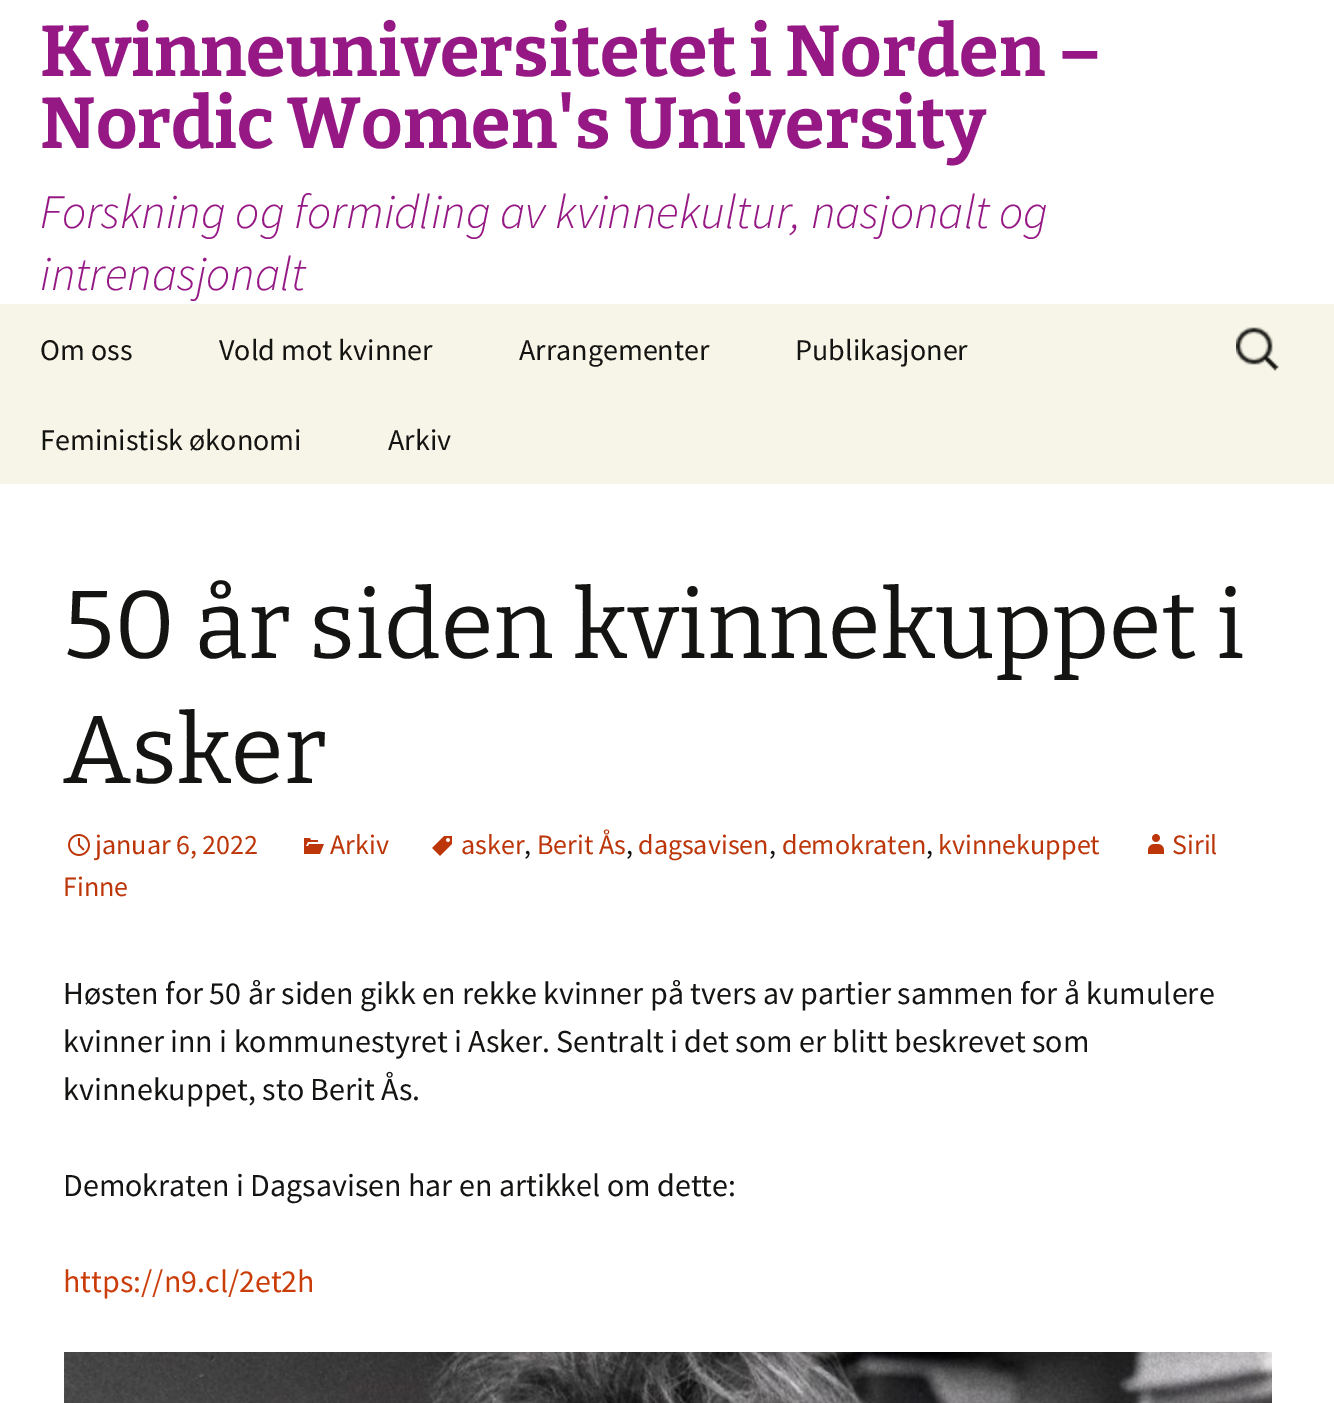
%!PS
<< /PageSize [1334 1403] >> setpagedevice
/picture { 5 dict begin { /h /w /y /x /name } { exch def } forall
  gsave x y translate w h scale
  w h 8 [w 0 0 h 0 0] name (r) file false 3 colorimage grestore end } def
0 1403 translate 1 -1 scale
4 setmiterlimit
1 setgray
0 0 1334 1403 rectfill
/Bitter-Thin [72 0 0 -72 0 0] selectfont
0.588 0.094 0.522 setrgbcolor
40 76 moveto (Kvinneuniversitetet i Norden –) show
40 148 moveto (Nordic Women's University) show
/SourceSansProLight-LightItalic [48 0 0 -48 0 0] selectfont
40 228 moveto (Forskning og formidling av kvinnekultur, nasjonalt og) show
40 290 moveto (intrenasjonalt) show
0.969 0.961 0.906 setrgbcolor
0 304 1334 180 rectfill
/SourceSansPro-Regular [30 0 0 -30 0 0] selectfont
0.078 0.078 0.071 setrgbcolor
40 360 moveto (Om oss) show
219 360 moveto (Vold mot kvinner) show
519 360 moveto (Arrangementer) show
795 360 moveto (Publikasjoner) show
40 450 moveto (Feministisk økonomi) show
388 450 moveto (Arkiv) show
(img1.rgb) 1236 327 43 44 picture
/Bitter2-Thin [96 0 0 -96 0 0] selectfont
63 658 moveto (50 år siden kvinnekuppet i) show
63 783 moveto (Asker) show
(img2.rgb) 432 836 20 20 picture
/SourceSansPro-Regular [28 0 0 -28 0 0] selectfont
0.737 0.212 0.039 setrgbcolor
461 854 moveto (asker) show
0.078 0.078 0.071 setrgbcolor
524 854 moveto (,) show
0.737 0.212 0.039 setrgbcolor
537 854 moveto (Berit Ås) show
0.078 0.078 0.071 setrgbcolor
626 854 moveto (,) show
0.737 0.212 0.039 setrgbcolor
638 854 moveto (dagsavisen) show
0.078 0.078 0.071 setrgbcolor
769 854 moveto (,) show
0.737 0.212 0.039 setrgbcolor
782 854 moveto (demokraten) show
0.078 0.078 0.071 setrgbcolor
926 854 moveto (,) show
0.737 0.212 0.039 setrgbcolor
938 854 moveto (kvinnekuppet) show
(img3.rgb) 1148 834 16 20 picture
1172 854 moveto (Siril) show
63 896 moveto (Finne) show
(img4.rgb) 68 834 22 22 picture
95 854 moveto (januar 6, 2022) show
(img5.rgb) 304 838 20 16 picture
330 854 moveto (Arkiv) show
/SourceSansPro-Regular [32 0 0 -32 0 0] selectfont
0.078 0.078 0.071 setrgbcolor
63 1004 moveto (Høsten for 50 år siden gikk en rekke kvinner på tvers av partier sammen for å kumulere) show
63 1052 moveto (kvinner inn i kommunestyret i Asker. Sentralt i det som er blitt beskrevet som) show
63 1100 moveto (kvinnekuppet, sto Berit Ås.) show
63 1196 moveto (Demokraten i Dagsavisen har en artikkel om dette:) show
0.792 0.235 0.031 setrgbcolor
63 1292 moveto (https://n9.cl/2et2h) show
(img6.rgb) 64 1352 1208 51 picture
showpage
